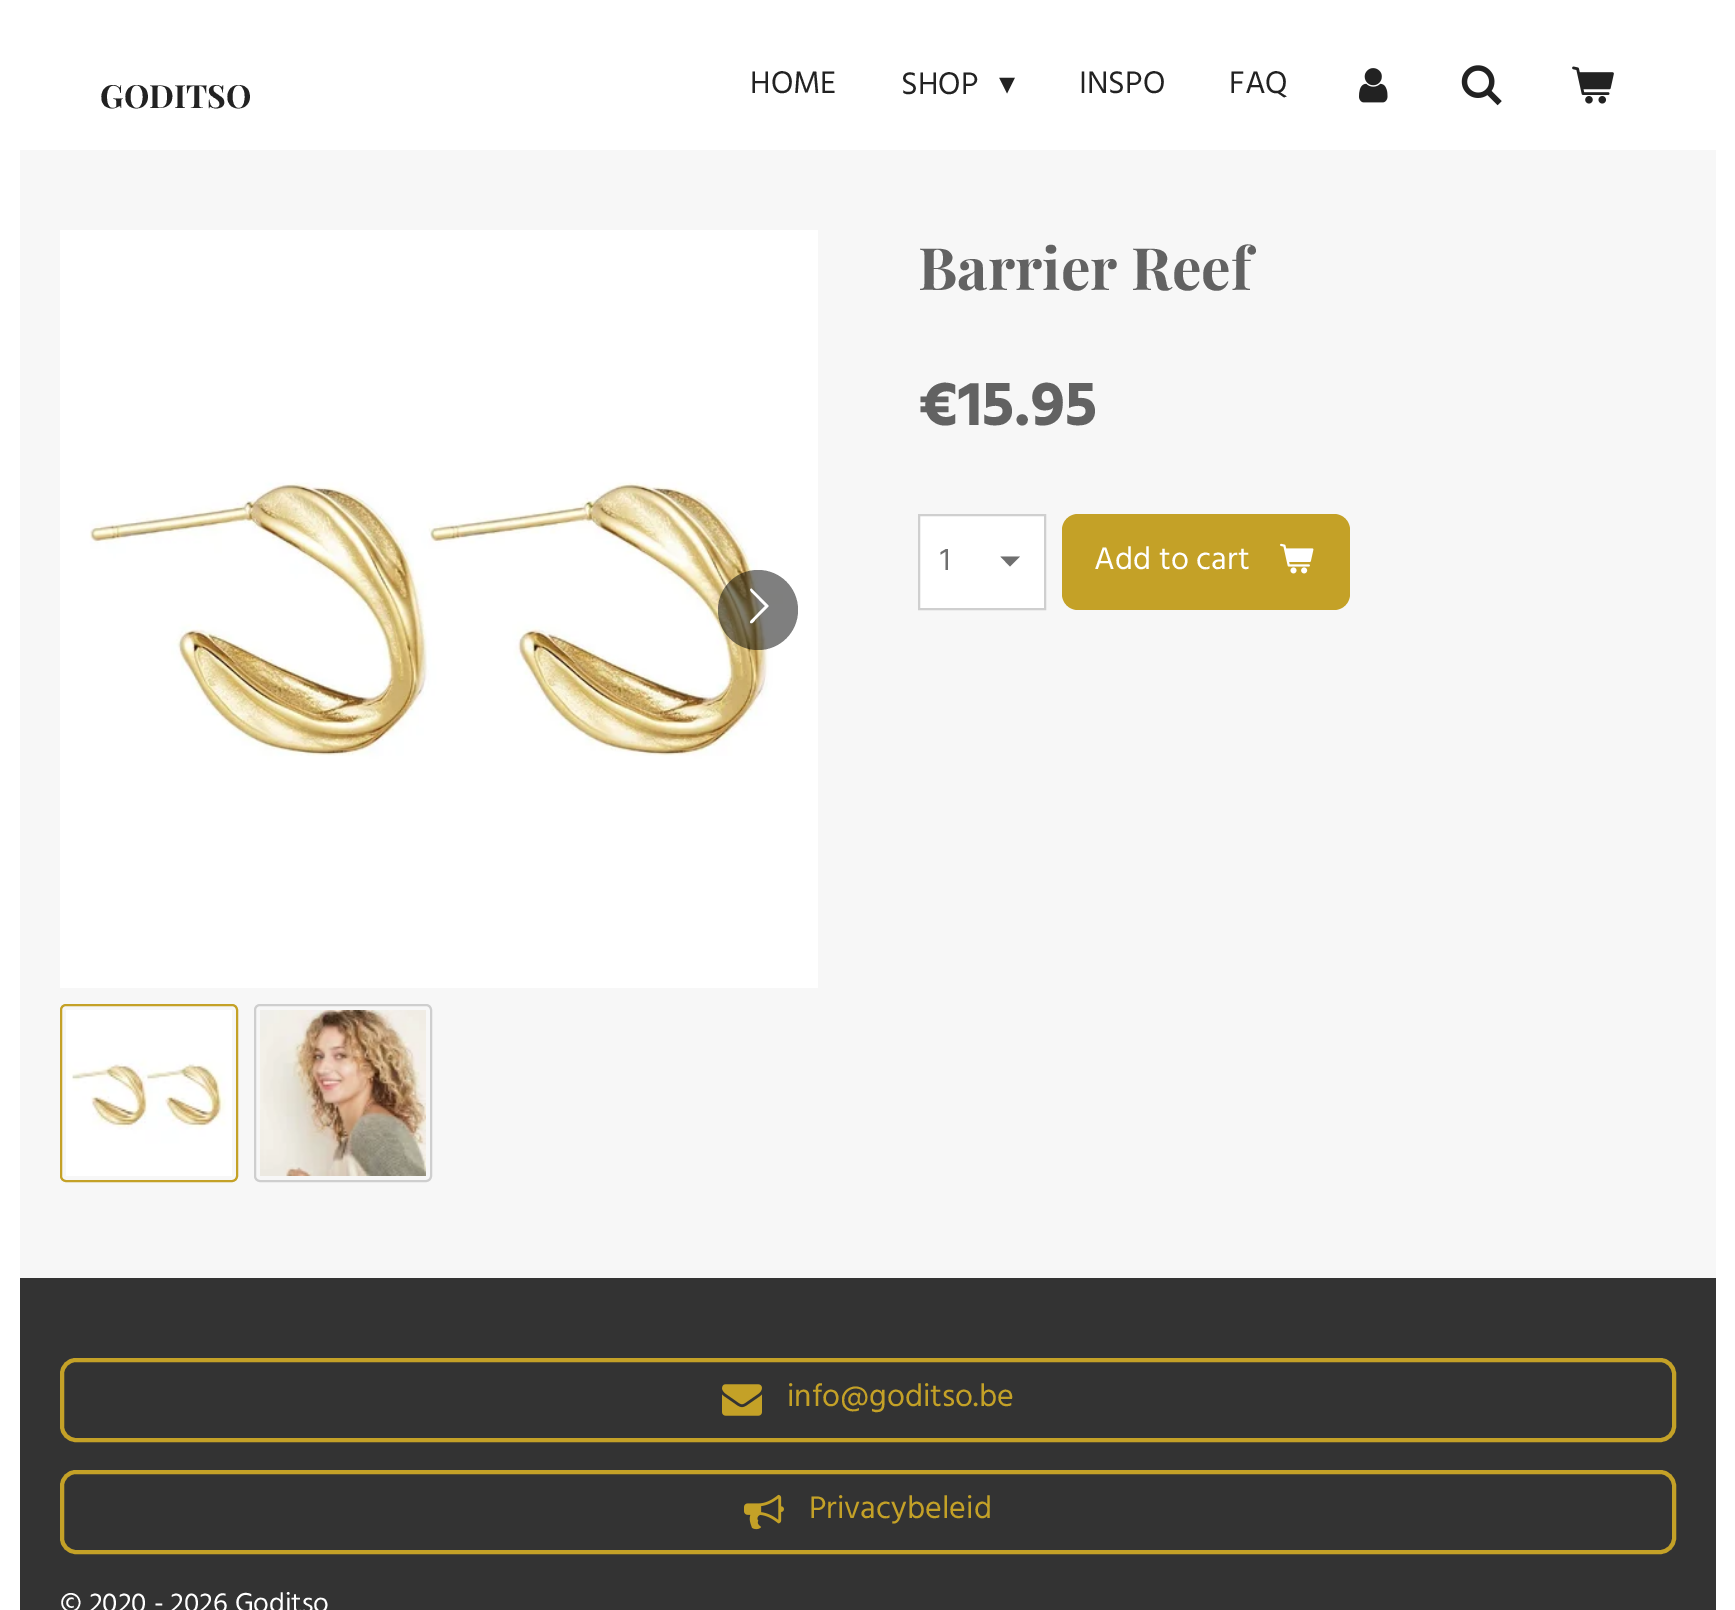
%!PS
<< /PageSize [1735 1610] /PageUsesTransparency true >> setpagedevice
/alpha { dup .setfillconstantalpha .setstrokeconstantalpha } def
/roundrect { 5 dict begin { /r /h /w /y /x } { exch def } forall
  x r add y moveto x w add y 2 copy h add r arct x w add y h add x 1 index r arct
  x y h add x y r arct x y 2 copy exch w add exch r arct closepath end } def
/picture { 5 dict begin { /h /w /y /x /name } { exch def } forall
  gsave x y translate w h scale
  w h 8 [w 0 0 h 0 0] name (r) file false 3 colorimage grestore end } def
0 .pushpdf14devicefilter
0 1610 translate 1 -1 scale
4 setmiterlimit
1 setgray
0 0 1735 1610 rectfill
/PlayfairDisplay-Bold [32 0 0 -32 0 0] selectfont
0.133 setgray
100 108 moveto (GODITSO) show
/Hind-Regular [32 0 0 -32 0 0] selectfont
750 93 moveto (HOME) show
901 94 moveto (SHOP) show
/DejaVuSans-Regular [32 0 0 -32 0 0] selectfont
999 94 moveto (▾) show
/Hind-Regular [32 0 0 -32 0 0] selectfont
1079 93 moveto (INSPO) show
1229 93 moveto (FAQ) show
(img1.rgb) 1359 68 29 35 picture
(img2.rgb) 1461 65 41 41 picture
(img3.rgb) 1572 66 42 38 picture
0.969 setgray
20 150 1696 1128 rectfill
(img4.rgb) 60 230 758 758 picture
0.5 alpha
0 setgray
newpath 758 610 40 0 360 arc closepath fill
1 alpha
1 setgray
newpath 750.5 621 moveto 765 606 lineto 753 593.5 lineto 752.5 593 748 589.5 751.5 588.5 curveto 752 589 lineto 768.5 605.5 lineto 768.5 606.5 lineto 755 620 lineto 755 620.5 751 625.5 750 622 curveto closepath fill
0.769 0.631 0.153 setrgbcolor
2 setlinewidth
61 1005 176 176 5 roundrect stroke
(img5.rgb) 66 1010 166 166 picture
0.808 setgray
255 1005 176 176 5 roundrect stroke
(img6.rgb) 260 1010 166 166 picture
/PlayfairDisplay-Bold [58.5 0 0 -58.5 0 0] selectfont
0.384 setgray
918 290 moveto (Barrier Reef) show
/Hind-Bold [64 0 0 -64 0 0] selectfont
918 425 moveto (€15.95) show
1 setgray
920 516 124 92 rectfill
0.435 setgray
newpath 1010 566.5 moveto 1000.5 556.5 lineto 1020 556.5 lineto closepath fill
0.812 setgray
919 515 126 94 rectstroke
/Hind-Regular [32 0 0 -32 0 0] selectfont
0.435 setgray
940 570 moveto (1) show
0.769 0.631 0.153 setrgbcolor
1062 514 288 96 16 roundrect fill
1 setgray
1094 569 moveto (Add to cart) show
(img7.rgb) 1280 543 34 31 picture
0.2 setgray
20 1278 1696 332 rectfill
0.769 0.631 0.153 setrgbcolor
4 setlinewidth
62 1360 1612 80 14 roundrect stroke
(img8.rgb) 722 1384 40 32 picture
787 1406 moveto (info@goditso.be) show
62 1472 1612 80 14 roundrect stroke
(img9.rgb) 744 1494 40 36 picture
809 1518 moveto (Privacybeleid) show
/Hind-Regular [28 0 0 -28 0 0] selectfont
1 setgray
60 1612 moveto (© 2020 - 2026 Goditso) show
.poppdf14devicefilter showpage
